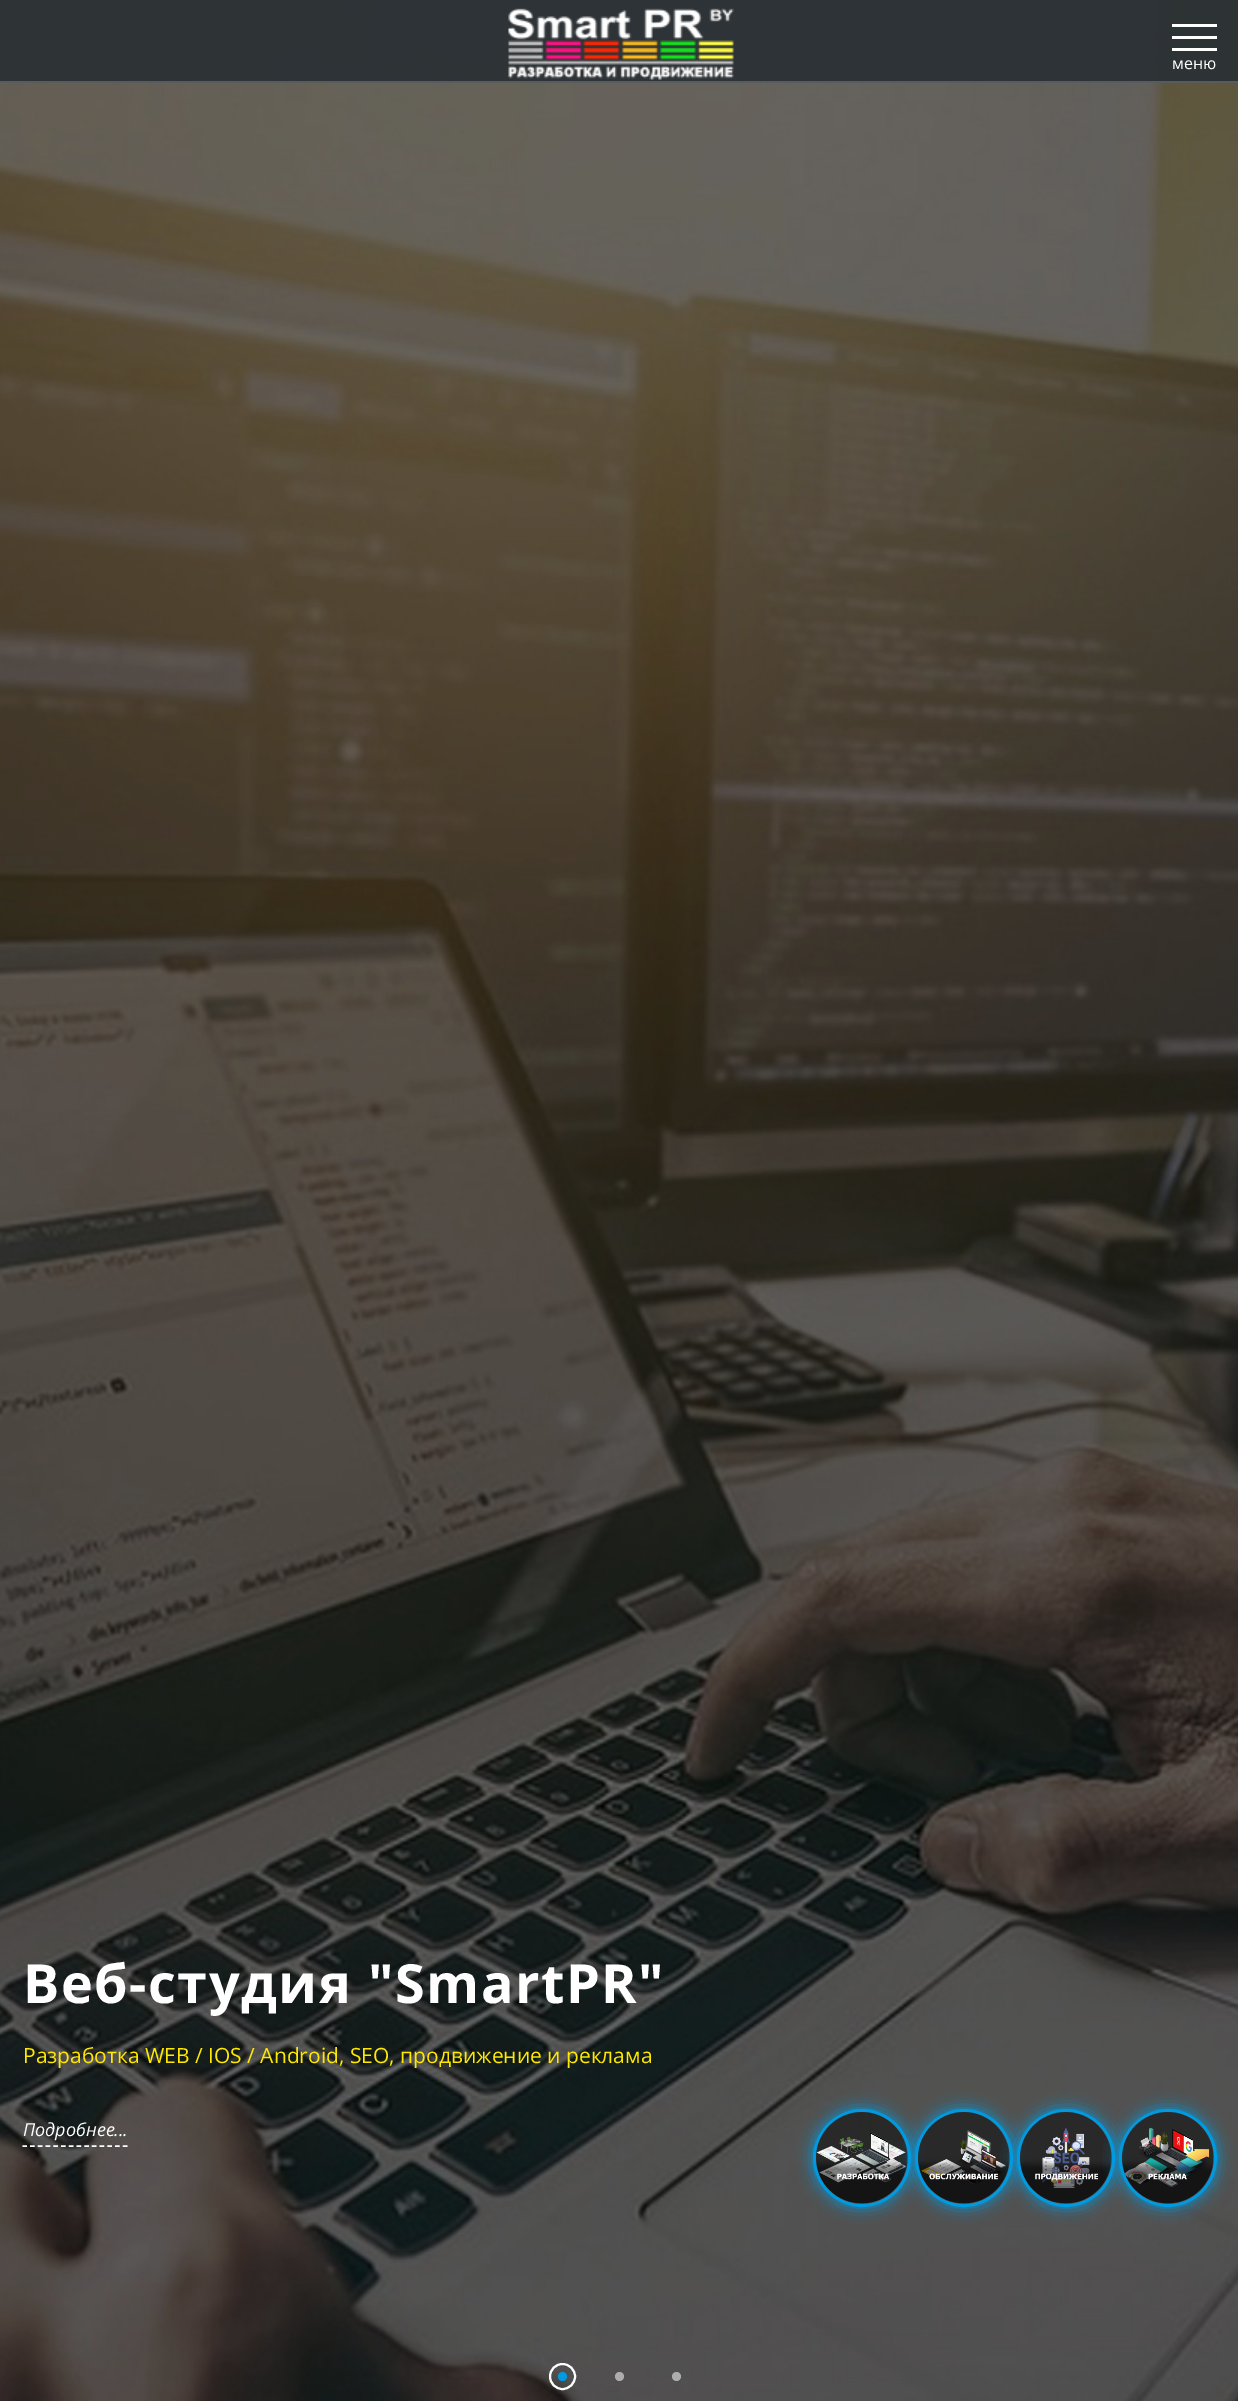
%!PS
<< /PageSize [1238 2401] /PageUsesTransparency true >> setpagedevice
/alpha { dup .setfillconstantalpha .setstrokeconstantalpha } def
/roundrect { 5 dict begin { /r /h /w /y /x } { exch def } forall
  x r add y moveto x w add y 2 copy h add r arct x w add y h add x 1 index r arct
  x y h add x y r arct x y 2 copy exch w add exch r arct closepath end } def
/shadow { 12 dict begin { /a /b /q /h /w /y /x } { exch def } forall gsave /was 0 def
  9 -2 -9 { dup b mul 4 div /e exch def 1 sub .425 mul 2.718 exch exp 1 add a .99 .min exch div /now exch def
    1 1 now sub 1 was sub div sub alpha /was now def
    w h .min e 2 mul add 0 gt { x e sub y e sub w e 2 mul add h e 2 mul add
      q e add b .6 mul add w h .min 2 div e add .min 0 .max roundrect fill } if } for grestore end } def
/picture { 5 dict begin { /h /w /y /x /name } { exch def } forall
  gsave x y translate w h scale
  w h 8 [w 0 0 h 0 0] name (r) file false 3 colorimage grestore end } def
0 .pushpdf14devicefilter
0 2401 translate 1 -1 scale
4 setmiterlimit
1 setgray
0 0 1238 2401 rectfill
(img2.rgb) 0 0 1238 2401 picture
0.9 alpha
0.157 0.18 0.2 setrgbcolor
0 0 1238 83 rectfill
0.2 alpha
1 setgray
0 81 1238 2 rectfill
1 alpha
(img1.rgb) 508 8 226 72 picture
1172 24 45 3 rectfill
1172 36 45 3 rectfill
1172 48 45 3 rectfill
/OpenSans-Regular [16 0 0 -16 0 0] selectfont
1172 69 moveto (меню) show
0 0.604 0.882 setrgbcolor
newpath 562.5 2376.5 4.5 0 360 arc closepath fill
1 setgray
2 setlinewidth
newpath 562.5 2376.5 12.5 0 360 arc closepath stroke
0.678 0.678 0.675 setrgbcolor
newpath 619.5 2376.5 4.5 0 360 arc closepath fill
newpath 676.5 2376.5 4.5 0 360 arc closepath fill
/OpenSans-Bold [54 0 0 -54 0 0] selectfont
1 setgray
23 2003 moveto 1.5 0 (Веб-студия "SmartPR") ashow
/OpenSans-Regular [21 0 0 -21 0 0] selectfont
1 0.914 0 setrgbcolor
23 2063 moveto (Разработка WEB / IOS / Android, SEO, продвижение и реклама) show
1 setgray
1.5 setlinewidth
[4.5 3.22] 0 setdash
newpath 22.5 2146 moveto 127.5 2146 lineto stroke
/OpenSans-Italic [18 0 0 -18 0 0] selectfont
23 2136 moveto (Подробнее...) show
gsave
newpath 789 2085 moveto 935 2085 lineto 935 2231 lineto 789 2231 lineto closepath 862 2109 moveto 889 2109 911 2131 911 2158 curveto 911 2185 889 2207 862 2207 curveto 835 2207 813 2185 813 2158 curveto 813 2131 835 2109 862 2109 curveto closepath eoclip newpath
0 0.604 0.882 setrgbcolor
813 2109 98 98 49 7.5 1 shadow
grestore
0 0.604 0.882 setrgbcolor
3 setlinewidth
[] 0 setdash
newpath 862 2158 47.5 0 360 arc closepath stroke
(img3.rgb) 816 2112 92 92 picture
gsave
newpath 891 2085 moveto 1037 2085 lineto 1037 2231 lineto 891 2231 lineto closepath 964 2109 moveto 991 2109 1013 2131 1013 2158 curveto 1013 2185 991 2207 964 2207 curveto 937 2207 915 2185 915 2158 curveto 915 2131 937 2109 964 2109 curveto closepath eoclip newpath
915 2109 98 98 49 7.5 1 shadow
grestore
newpath 964 2158 47.5 0 360 arc closepath stroke
(img4.rgb) 918 2112 92 92 picture
gsave
newpath 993 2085 moveto 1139 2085 lineto 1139 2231 lineto 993 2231 lineto closepath 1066 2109 moveto 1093 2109 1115 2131 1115 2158 curveto 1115 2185 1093 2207 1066 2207 curveto 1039 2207 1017 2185 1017 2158 curveto 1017 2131 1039 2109 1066 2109 curveto closepath eoclip newpath
1017 2109 98 98 49 7.5 1 shadow
grestore
newpath 1066 2158 47.5 0 360 arc closepath stroke
(img5.rgb) 1020 2112 92 92 picture
gsave
newpath 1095 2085 moveto 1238 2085 lineto 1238 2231 lineto 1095 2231 lineto closepath 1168 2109 moveto 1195 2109 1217 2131 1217 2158 curveto 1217 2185 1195 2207 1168 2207 curveto 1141 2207 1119 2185 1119 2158 curveto 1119 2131 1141 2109 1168 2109 curveto closepath eoclip newpath
1119 2109 98 98 49 7.5 1 shadow
grestore
newpath 1168 2158 47.5 0 360 arc closepath stroke
(img6.rgb) 1122 2112 92 92 picture
.poppdf14devicefilter showpage
